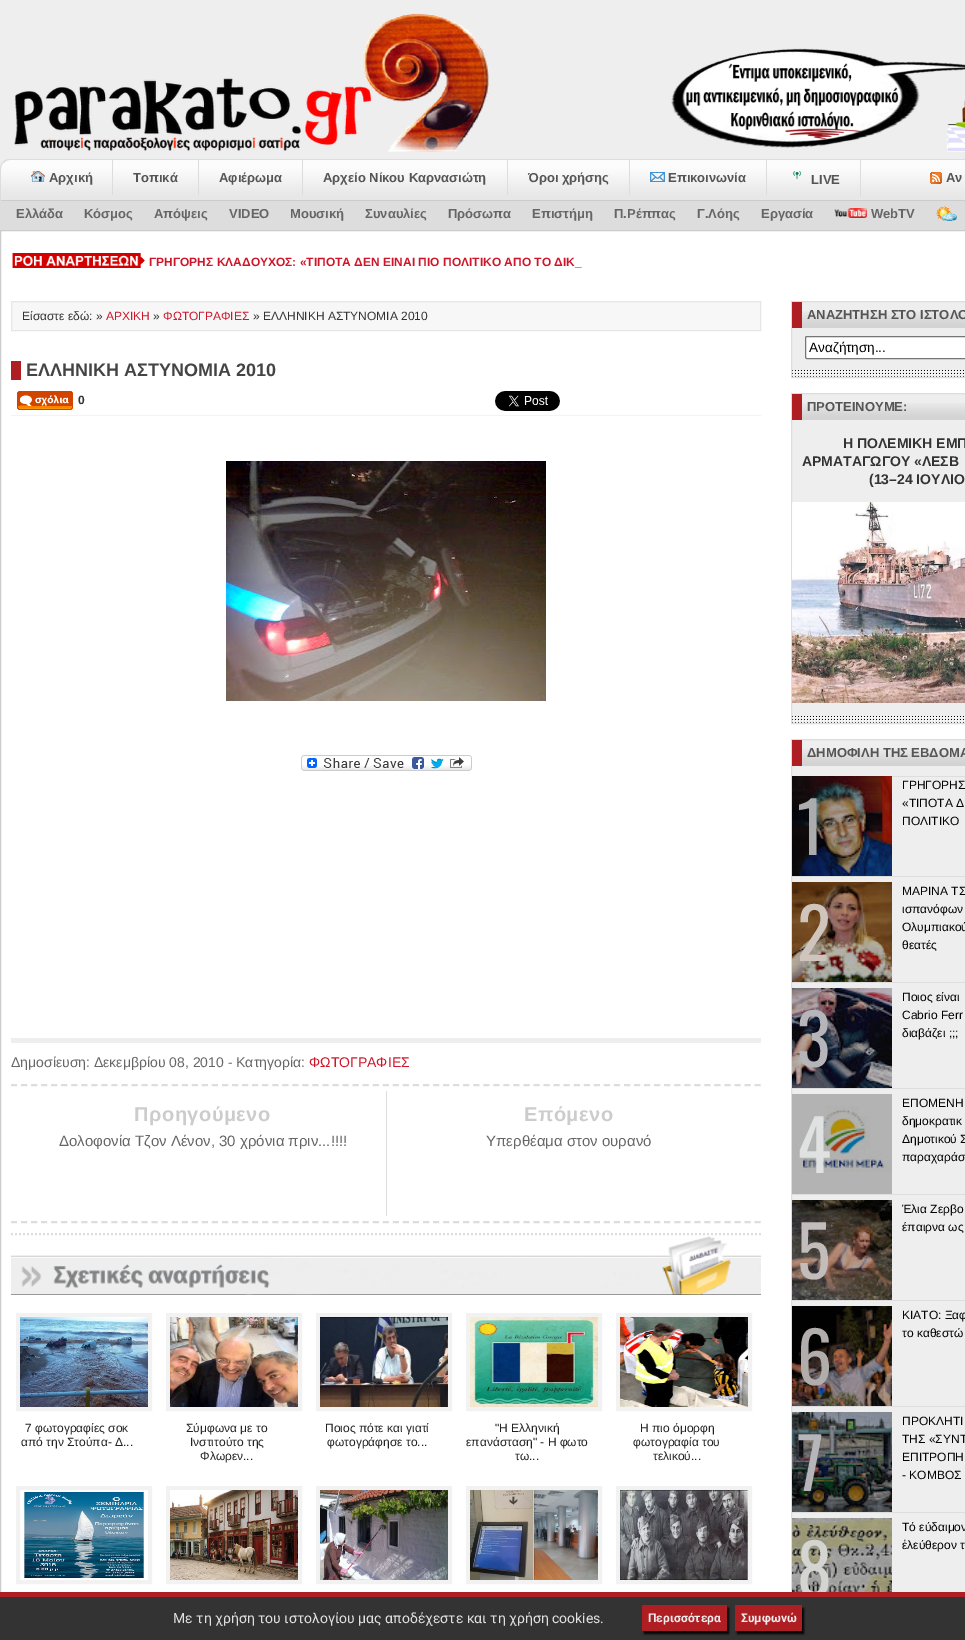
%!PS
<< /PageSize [965 1640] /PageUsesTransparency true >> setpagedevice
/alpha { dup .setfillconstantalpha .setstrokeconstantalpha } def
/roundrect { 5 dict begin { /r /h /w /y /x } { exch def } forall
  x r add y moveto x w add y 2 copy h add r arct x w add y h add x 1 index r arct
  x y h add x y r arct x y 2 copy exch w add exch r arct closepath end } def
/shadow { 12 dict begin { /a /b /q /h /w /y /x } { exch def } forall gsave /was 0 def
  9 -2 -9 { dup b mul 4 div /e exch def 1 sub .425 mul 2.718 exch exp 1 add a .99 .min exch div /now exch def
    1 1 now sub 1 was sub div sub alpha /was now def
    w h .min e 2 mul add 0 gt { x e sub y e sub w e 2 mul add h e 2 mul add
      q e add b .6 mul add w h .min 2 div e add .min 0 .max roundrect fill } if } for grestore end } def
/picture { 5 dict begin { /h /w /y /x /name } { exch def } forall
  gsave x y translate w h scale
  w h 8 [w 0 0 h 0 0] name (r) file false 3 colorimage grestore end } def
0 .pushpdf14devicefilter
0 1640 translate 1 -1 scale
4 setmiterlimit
0.933 setgray
0 0 965 1640 rectfill
(img1.rgb) 14 13 475 139 picture
(img2.rgb) 671 48 294 104 picture
(img3.rgb) 0 159 965 42 picture
0.867 setgray
newpath 10 159 moveto 7 159 4 160 3 162 curveto 4 163 lineto 5 161 8 160 10 160 curveto 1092 160 lineto 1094 160 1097 161 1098 163 curveto 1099 162 lineto 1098 160 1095 159 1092 159 curveto closepath fill
0.8 setgray
newpath 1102 201 moveto 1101 200 lineto 1 200 lineto 0 201 lineto closepath fill
0.867 setgray
newpath 0 201 moveto 1 200 lineto 1 169 lineto 1 166.5 2 164 3.5 162.5 curveto 3 162 lineto 1 163.5 0 166 0 169 curveto closepath fill
112 160 1 35 rectfill
(img4.rgb) 31 171 14 11 picture
/LiberationSans-Bold [13 0 0 -13 0 0] selectfont
0.333 setgray
49 182 moveto (Αρχική) show
0.867 setgray
198 160 1 35 rectfill
0.333 setgray
133 182 moveto (Τοπικά) show
0.867 setgray
302 160 1 35 rectfill
0.333 setgray
219 182 moveto (Αφιέρωμα) show
0.867 setgray
507 160 1 35 rectfill
0.333 setgray
323 182 moveto (Αρχείο Νίκου Καρνασιώτη) show
0.867 setgray
629 160 1 35 rectfill
0.333 setgray
528 182 moveto (Όροι χρήσης) show
0.867 setgray
766 160 1 35 rectfill
(img5.rgb) 650 172 15 10 picture
0.333 setgray
668 182 moveto (Επικοινωνία) show
0.867 setgray
860 160 1 37 rectfill
(img6.rgb) 792 171 10 8 picture
0.333 setgray
811 184 moveto (LIVE) show
(img7.rgb) 930 172 12 12 picture
946 182 moveto (Αν) show
0.867 setgray
0 201 965 29 rectfill
0.4 setgray
16 218 moveto (Ελλάδα) show
84 218 moveto (Κόσμος) show
154 218 moveto (Απόψεις) show
229 218 moveto (VIDEO) show
290 218 moveto (Μουσική) show
365 218 moveto (Συναυλίες) show
448 218 moveto (Πρόσωπα) show
532 218 moveto (Επιστήμη) show
614 218 moveto (Π.Ρέππας) show
697 218 moveto (Γ.Λόης) show
761 218 moveto (Εργασία) show
(img8.rgb) 834 208 33 10 picture
871 218 moveto (WebTV) show
(img9.rgb) 936 206 21 15 picture
1 setgray
1 231 964 1361 rectfill
0.8 setgray
0.5 230.5 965 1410 rectstroke
(img10.rgb) 12 253 133 15 picture
/LiberationSans-Bold [12 0 0 -12 0 0] selectfont
0.812 0.082 0.165 setrgbcolor
149 266 moveto (ΓΡΗΓΟΡΗΣ ΚΛΑΔΟΥΧΟΣ: «ΤΙΠΟΤΑ ΔΕΝ ΕΙΝΑΙ ΠΙΟ ΠΟΛΙΤΙΚΟ ΑΠΟ ΤΟ ΔΙΚ_) show
0.969 setgray
newpath 11.5 301.5 moveto 760.5 301.5 lineto 760.5 330.5 lineto 11.5 330.5 lineto closepath gsave fill grestore
0.902 setgray
stroke
/LiberationSans-Regular [12 0 0 -12 0 0] selectfont
0.2 setgray
22 320 moveto (Είσαστε εδώ: ») show
0.812 0.082 0.165 setrgbcolor
106 320 moveto (ΑΡΧΙΚΗ) show
0.2 setgray
153 320 moveto (») show
0.812 0.082 0.165 setrgbcolor
163 320 moveto (ΦΩΤΟΓΡΑΦΙΕΣ) show
0.2 setgray
253 320 moveto (» ΕΛΛΗΝΙΚΗ ΑΣΤΥΝΟΜΙΑ 2010) show
0.867 setgray
2 setlinewidth
[2 2] 0 setdash
newpath 11 1234 moveto 761 1234 lineto stroke
0.686 0.118 0.137 setrgbcolor
11 361 10 19 rectfill
/LiberationSans-Bold [18 0 0 -18 0 0] selectfont
0.267 setgray
26 376 moveto (ΕΛΛΗΝΙΚΗ ΑΣΤΥΝΟΜΙΑ 2010) show
0.953 setgray
11 415 750 1 rectfill
(img11.rgb) 17 391 56 19 picture
/LiberationSans-Bold [12 0 0 -12 0 0] selectfont
0.2 setgray
78 404 moveto (0) show
(img12.rgb) 495 391 65 20 picture
(img13.rgb) 226 461 320 240 picture
(img14.rgb) 301 755 171 16 picture
0.933 setgray
11 1038 750 5 rectfill
/LiberationSans-Regular [14 0 0 -14 0 0] selectfont
0.4 setgray
11 1067 moveto (Δημοσίευση: Δεκεμβρίου 08, 2010 - Κατηγορία:) show
0.812 0.082 0.165 setrgbcolor
309 1067 moveto (ΦΩΤΟΓΡΑΦΙΕΣ) show
0.867 setgray
[6 4.05] 0 setdash
newpath 11 1085 moveto 761 1085 lineto stroke
newpath 11 1222 moveto 761 1222 lineto stroke
386 1091 1 125 rectfill
/LiberationSans-Bold [20 0 0 -20 0 0] selectfont
0.8 setgray
134 1121 moveto 0.5 0 (Προηγούμενο) ashow
/LiberationSans-Regular [15 0 0 -15 0 0] selectfont
0.4 setgray
59 1146 moveto (Δολοφονία Τζον Λένον, 30 χρόνια πριν...!!!!) show
/LiberationSans-Bold [20 0 0 -20 0 0] selectfont
0.8 setgray
524 1121 moveto 0.5 0 (Επόμενο) ashow
/LiberationSans-Regular [15 0 0 -15 0 0] selectfont
0.4 setgray
486 1146 moveto (Υπερθέαμα στον ουρανό) show
(img15.rgb) 11 1236 750 59 picture
0.949 setgray
4 setlinewidth
[] 0 setdash
18 1315 132 94 rectstroke
(img16.rgb) 20 1317 128 90 picture
/LiberationSans-Regular [12 0 0 -12 0 0] selectfont
0.133 setgray
25 1432 moveto (7 φωτογραφίες σοκ) show
21 1446 moveto (από την Στούπα- Δ...) show
0.949 setgray
168 1315 132 94 rectstroke
(img17.rgb) 170 1317 128 90 picture
0.133 setgray
186 1432 moveto (Σύμφωνα με το) show
190 1446 moveto (Ινστιτούτο της) show
200 1460 moveto (Φλωρεν...) show
0.949 setgray
318 1315 132 94 rectstroke
(img18.rgb) 320 1317 128 90 picture
0.133 setgray
325 1432 moveto (Ποιος πότε και γιατί) show
327 1446 moveto (φωτογράφησε το...) show
0.949 setgray
468 1315 132 94 rectstroke
(img19.rgb) 470 1317 128 90 picture
0.133 setgray
495 1432 moveto ("Η Ελληνική) show
466 1446 moveto (επανάσταση" - Η φωτο) show
515 1460 moveto (τω...) show
0.949 setgray
618 1315 132 94 rectstroke
(img20.rgb) 620 1317 128 90 picture
0.133 setgray
640 1432 moveto (Η πιο όμορφη) show
633 1446 moveto (φωτογραφία του) show
653 1460 moveto (τελικού...) show
0.949 setgray
18 1488 132 94 rectstroke
(img21.rgb) 24 1492 120 86 picture
168 1488 132 94 rectstroke
(img22.rgb) 170 1490 128 90 picture
318 1488 132 94 rectstroke
(img23.rgb) 320 1490 128 90 picture
468 1488 132 94 rectstroke
(img24.rgb) 470 1490 128 90 picture
618 1488 132 94 rectstroke
(img25.rgb) 620 1490 128 90 picture
0.933 setgray
792 302 173 68 rectfill
(img26.rgb) 792 370 173 7 picture
0.867 setgray
1 setlinewidth
791.5 301.5 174 76 rectstroke
(img27.rgb) 802 311 163 17 picture
0.686 0.118 0.137 setrgbcolor
792 302 10 26 rectfill
/LiberationSans-Bold [13 0 0 -13 0 0] selectfont
0.333 setgray
807 319 moveto (ΑΝΑΖΗΤΗΣΗ ΣΤΟ ΙΣΤΟΛΟ) show
1 setgray
805.5 336.5 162 22 1.5 roundrect gsave fill grestore
0.463 setgray
stroke
/LiberationSans-Regular [13.5 0 0 -13.5 0 0] selectfont
0 setgray
809 352 moveto (Αναζήτηση...) show
0.933 setgray
792 394 173 322 rectfill
(img26.rgb) 792 716 173 7 picture
0.867 setgray
791.5 393.5 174 330 rectstroke
(img27.rgb) 802 403 163 17 picture
0.686 0.118 0.137 setrgbcolor
792 394 10 26 rectfill
/LiberationSans-Bold [13 0 0 -13 0 0] selectfont
0.333 setgray
807 411 moveto (ΠΡΟΤΕΙΝΟΥΜΕ:) show
/LiberationSans-Bold [14 0 0 -14 0 0] selectfont
0.2 setgray
843 448 moveto (Η ΠΟΛΕΜΙΚΗ ΕΜΠ) show
802 466 moveto (ΑΡΜΑΤΑΓΩΓΟΥ «ΛΕΣΒ) show
869 484 moveto (\(13–24 ΙΟΥΛΙΟ) show
(img28.rgb) 792 502 173 201 picture
0.933 setgray
792 740 173 852 rectfill
0.867 setgray
791.5 739.5 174 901 rectstroke
(img27.rgb) 802 749 163 17 picture
0.686 0.118 0.137 setrgbcolor
792 740 10 26 rectfill
/LiberationSans-Bold [13 0 0 -13 0 0] selectfont
0.333 setgray
807 757 moveto (ΔΗΜΟΦΙΛΗ ΤΗΣ ΕΒΔΟΜΑ) show
0.867 setgray
892 776 73 1 rectfill
792 876 173 1 rectfill
(img29.rgb) 792 776 100 100 picture
/Oswald-Regular [70 0 0 -70 0 0] selectfont
0.667 0.675 0.678 setrgbcolor
797 855 moveto (1) show
/LiberationSans-Regular [12 0 0 -12 0 0] selectfont
0 setgray
902 789 moveto (ΓΡΗΓΟΡΗΣ) show
902 807 moveto («ΤΙΠΟΤΑ Δ) show
902 825 moveto (ΠΟΛΙΤΙΚΟ) show
0.867 setgray
792 982 173 1 rectfill
(img30.rgb) 792 882 100 100 picture
/Oswald-Regular [70 0 0 -70 0 0] selectfont
0.816 0.773 0.737 setrgbcolor
797 961 moveto (2) show
/LiberationSans-Regular [12 0 0 -12 0 0] selectfont
0 setgray
902 895 moveto (ΜΑΡΙΝΑ ΤΣ) show
902 913 moveto (ισπανόφων) show
902 931 moveto (Ολυμπιακού) show
902 949 moveto (θεατές) show
0.867 setgray
792 1088 173 1 rectfill
(img31.rgb) 792 988 100 100 picture
/Oswald-Regular [70 0 0 -70 0 0] selectfont
0.714 0.71 0.725 setrgbcolor
797 1067 moveto (3) show
/LiberationSans-Regular [12 0 0 -12 0 0] selectfont
0 setgray
902 1001 moveto (Ποιος είναι) show
902 1019 moveto (Cabrio Ferr) show
902 1037 moveto (διαβάζει ;;;) show
0.867 setgray
792 1194 173 1 rectfill
(img32.rgb) 792 1094 100 100 picture
/Oswald-Regular [70 0 0 -70 0 0] selectfont
0.878 0.882 0.882 setrgbcolor
797 1173 moveto (4) show
/LiberationSans-Regular [12 0 0 -12 0 0] selectfont
0 setgray
902 1107 moveto (ΕΠΟΜΕΝΗ) show
902 1125 moveto (δημοκρατικ) show
902 1143 moveto (Δημοτικού Σ) show
902 1161 moveto (παραχαράσ) show
0.867 setgray
792 1300 173 1 rectfill
0 setgray
902 1213 moveto (Έλια Ζερβο) show
902 1231 moveto (έπαιρνα ως) show
(img33.rgb) 792 1200 100 100 picture
/Oswald-Regular [70 0 0 -70 0 0] selectfont
0.761 0.741 0.733 setrgbcolor
797 1279 moveto (5) show
0.867 setgray
792 1406 173 1 rectfill
/LiberationSans-Regular [12 0 0 -12 0 0] selectfont
0 setgray
902 1319 moveto (ΚΙΑΤΟ: Ξαφ) show
902 1337 moveto (το καθεστώ) show
(img34.rgb) 792 1306 100 100 picture
/Oswald-Regular [70 0 0 -70 0 0] selectfont
0.69 0.678 0.675 setrgbcolor
797 1385 moveto (6) show
0.867 setgray
792 1512 173 1 rectfill
(img35.rgb) 792 1412 100 100 picture
0.714 0.71 0.725 setrgbcolor
797 1491 moveto (7) show
/LiberationSans-Regular [12 0 0 -12 0 0] selectfont
0 setgray
902 1425 moveto (ΠΡΟΚΛΗΤΙ) show
902 1443 moveto (ΤΗΣ «ΣΥΝΤ) show
902 1461 moveto (ΕΠΙΤΡΟΠΗ) show
902 1479 moveto (- ΚΟΜΒΟΣ) show
(img36.rgb) 792 1518 100 74 picture
/Oswald-Regular [70 0 0 -70 0 0] selectfont
0.831 0.831 0.816 setrgbcolor
797 1597 moveto (8) show
/LiberationSans-Regular [12 0 0 -12 0 0] selectfont
0 setgray
902 1531 moveto (Τό εύδαιμον) show
902 1549 moveto (ἐλεύθερον τ) show
0.2 setgray
0 1597 965 43 rectfill
0.686 0.118 0.137 setrgbcolor
0 1592 965 5 rectfill
/Roboto-Regular [14 0 0 -14 0 0] selectfont
0.878 0.882 0.882 setrgbcolor
173 1623 moveto (Με τη χρήση του ιστολογίου μας αποδέχεστε και τη χρήση cookies.) show
0 setgray
644 1608 85 26 1 1 1 shadow
0.686 0.118 0.137 setrgbcolor
642 1605 85 26 1 roundrect fill
/Roboto-Bold [12 0 0 -12 0 0] selectfont
0.933 setgray
648 1622 moveto (Περισσότερα) show
0 setgray
737 1608 67 26 1 1 1 shadow
0.686 0.118 0.137 setrgbcolor
735 1605 67 26 1 roundrect fill
0.933 setgray
741 1622 moveto (Συμφωνώ) show
.poppdf14devicefilter showpage
